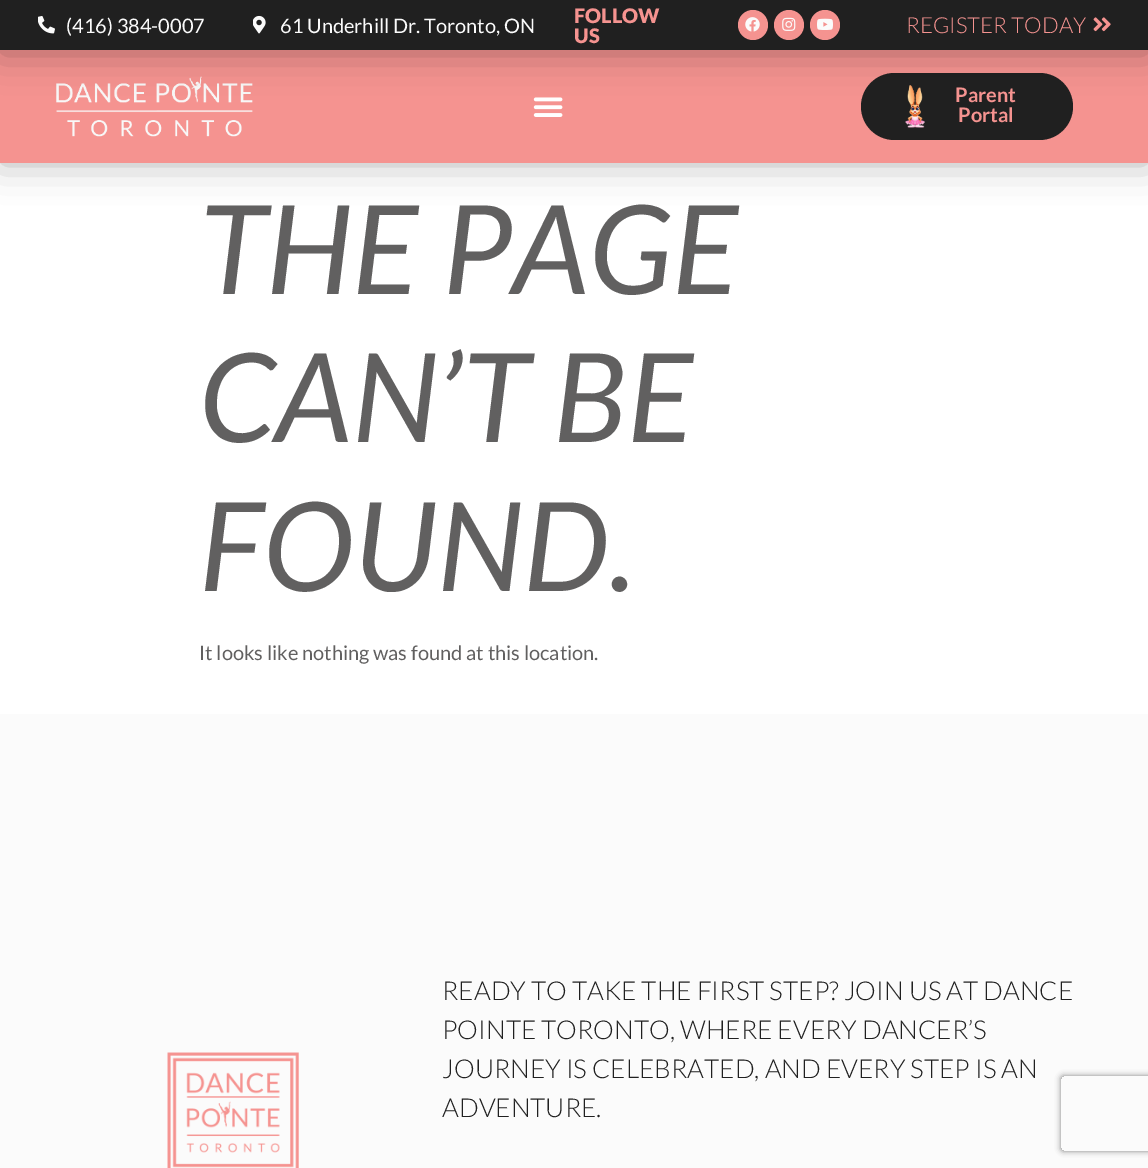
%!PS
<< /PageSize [1148 1168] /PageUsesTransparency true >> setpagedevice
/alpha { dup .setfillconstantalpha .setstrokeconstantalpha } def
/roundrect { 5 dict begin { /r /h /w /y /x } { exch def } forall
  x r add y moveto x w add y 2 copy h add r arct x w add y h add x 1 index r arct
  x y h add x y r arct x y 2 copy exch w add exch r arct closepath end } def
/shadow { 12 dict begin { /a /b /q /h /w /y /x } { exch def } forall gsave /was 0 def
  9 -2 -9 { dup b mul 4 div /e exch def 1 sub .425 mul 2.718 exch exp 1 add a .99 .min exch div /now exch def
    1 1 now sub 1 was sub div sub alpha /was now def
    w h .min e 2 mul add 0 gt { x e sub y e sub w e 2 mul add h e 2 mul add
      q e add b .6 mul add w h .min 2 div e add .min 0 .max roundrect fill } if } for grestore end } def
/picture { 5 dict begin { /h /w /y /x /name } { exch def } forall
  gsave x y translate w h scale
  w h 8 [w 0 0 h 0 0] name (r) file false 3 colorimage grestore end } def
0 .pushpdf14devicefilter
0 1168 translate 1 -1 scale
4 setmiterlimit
1 setgray
0 0 1148 1168 rectfill
0 setgray
0 50 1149 113 0 19 0.3 shadow
0.961 0.576 0.565 setrgbcolor
0 50 1148 113 rectfill
(img7.rgb) 56 76 197 61 picture
(img8.rgb) 533 97 30 20 picture
0.125 setgray
861 73 212 67 33.5 roundrect fill
(img9.rgb) 905 85 20 43 picture
0 setgray
0 3 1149 50 0 19 0.3 shadow
0.125 setgray
0 0 1148 50 rectfill
(img1.rgb) 38 16 17 18 picture
/Lato-Regular [20 0 0 -20 0 0] selectfont
0.984 setgray
66 33 moveto (\(416\) 384-0007) show
(img2.rgb) 253 15 13 19 picture
280 33 moveto (61 Underhill Dr. Toronto, ON) show
/Lato-Black [20 0 0 -20 0 0] selectfont
0.961 0.576 0.565 setrgbcolor
574 23 moveto (FOLLOW) show
574 43 moveto (US) show
newpath 753 25 15 0 360 arc closepath fill
(img3.rgb) 745 17 15 15 picture
newpath 789 25 15 0 360 arc closepath fill
(img4.rgb) 782 17 14 14 picture
newpath 825 25 15 0 360 arc closepath fill
(img5.rgb) 817 18 16 12 picture
/Lato-Light [22 0 0 -22 0 0] selectfont
906 33 moveto (REGISTER TODAY) show
(img6.rgb) 1093 17 18 15 picture
/Lato-Bold [20 0 0 -20 0 0] selectfont
955 102 moveto (Parent) show
958 122 moveto (Portal) show
/Lato-Italic [123.75 0 0 -123.75 0 0] selectfont
0.38 0.376 0.376 setrgbcolor
199 294 moveto (THE PAGE) show
199 442 moveto (CAN’T BE) show
199 591 moveto (FOUND.) show
/Lato-Regular [20 0 0 -20 0 0] selectfont
199 660 moveto (It looks like nothing was found at this location.) show
0.984 setgray
0 714 1148 454 rectfill
(img10.rgb) 167 1052 132 116 picture
/Lato-Light [26 0 0 -26 0 0] selectfont
0.125 setgray
442 1000 moveto (READY TO TAKE THE FIRST STEP? JOIN US AT DANCE) show
442 1039 moveto (POINTE TORONTO, WHERE EVERY DANCER’S) show
442 1078 moveto (JOURNEY IS CELEBRATED, AND EVERY STEP IS AN) show
442 1117 moveto (ADVENTURE.) show
gsave
newpath 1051 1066 moveto 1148 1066 lineto 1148 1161 lineto 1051 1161 lineto closepath 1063.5 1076 moveto 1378.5 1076 lineto 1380 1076 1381 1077 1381 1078.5 curveto 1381 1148.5 lineto 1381 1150 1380 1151 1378.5 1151 curveto 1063.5 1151 lineto 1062 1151 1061 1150 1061 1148.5 curveto 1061 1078.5 lineto 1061 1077 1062 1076 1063.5 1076 curveto closepath eoclip newpath
0.502 setgray
1061 1076 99 75 2.5 3 1 shadow
grestore
.poppdf14devicefilter showpage
